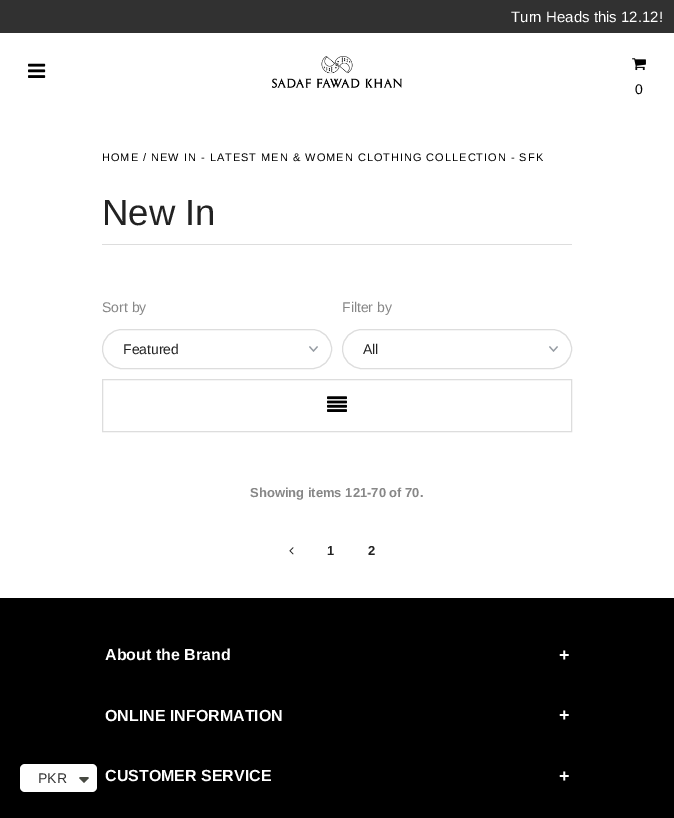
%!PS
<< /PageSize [674 818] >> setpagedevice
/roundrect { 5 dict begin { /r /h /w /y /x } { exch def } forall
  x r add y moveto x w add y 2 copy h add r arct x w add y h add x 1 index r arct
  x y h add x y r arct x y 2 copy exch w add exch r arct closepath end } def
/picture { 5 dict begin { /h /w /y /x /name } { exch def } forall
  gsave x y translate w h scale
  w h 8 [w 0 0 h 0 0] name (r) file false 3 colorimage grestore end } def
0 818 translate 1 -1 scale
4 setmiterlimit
1 setgray
0 0 674 818 rectfill
0 setgray
0 598 674 220 rectfill
1 setgray
20 764 77 28 5 roundrect fill
/LiberationSans-Regular [14 0 0 -14 0 0] selectfont
0.2 setgray
38 783 moveto (PKR) show
0.278 0.286 0.259 setrgbcolor
newpath 81 777 moveto 80 777 79.5 777.5 79 778 curveto 84 783 lineto 89 778 lineto 88 777 lineto closepath fill
0.192 setgray
0 0 674 33 rectfill
/LiberationSans-Regular [15 0 0 -15 0 0] selectfont
1 setgray
511 22 moveto (Turn Heads this 12.12!) show
(img1.rgb) 28 63 18 15 picture
(img2.rgb) 272 56 130 32 picture
(img3.rgb) 632 58 14 13 picture
/LiberationSans-Regular [14 0 0 -14 0 0] selectfont
0 setgray
635 94 moveto 1 0 (0) ashow
/LiberationSans-Regular [11 0 0 -11 0 0] selectfont
102 161 moveto 1 0 (HOME / NEW IN - LATEST MEN & WOMEN CLOTHING COLLECTION - SFK) ashow
0.867 setgray
102 244 470 1 rectfill
/LiberationSans-Regular [36.5 0 0 -36.5 0 0] selectfont
0.133 setgray
102 225 moveto (New In) show
/LiberationSans-Regular [14 0 0 -14 0 0] selectfont
0.529 setgray
102 312 moveto (Sort by) show
(img4.rgb) 309 346 9 6 picture
0.867 setgray
102.5 329.5 229 39 19.5 roundrect stroke
0.133 setgray
123 354 moveto (Featured) show
0.529 setgray
342 312 moveto (Filter by) show
(img4.rgb) 549 346 9 6 picture
0.867 setgray
342.5 329.5 229 39 19.5 roundrect stroke
0.133 setgray
363 354 moveto (All) show
0.867 setgray
102.5 379.5 469 52 rectstroke
(img5.rgb) 327 396 20 16 picture
/LiberationSans-Bold [13 0 0 -13 0 0] selectfont
0.529 setgray
250 497 moveto (Showing items 121-70 of 70.) show
(img6.rgb) 289 547 5 8 picture
0.133 setgray
327 555 moveto (1) show
368 555 moveto (2) show
/LiberationSans-Bold [16 0 0 -16 0 0] selectfont
1 setgray
105 660 moveto (About the Brand) show
/LiberationSans-Bold [18 0 0 -18 0 0] selectfont
559 661 moveto (+) show
/LiberationSans-Bold [16 0 0 -16 0 0] selectfont
105 721 moveto (ONLINE INFORMATION) show
/LiberationSans-Bold [18 0 0 -18 0 0] selectfont
559 721 moveto (+) show
/LiberationSans-Bold [16 0 0 -16 0 0] selectfont
105 781 moveto (CUSTOMER SERVICE) show
/LiberationSans-Bold [18 0 0 -18 0 0] selectfont
559 782 moveto (+) show
showpage
